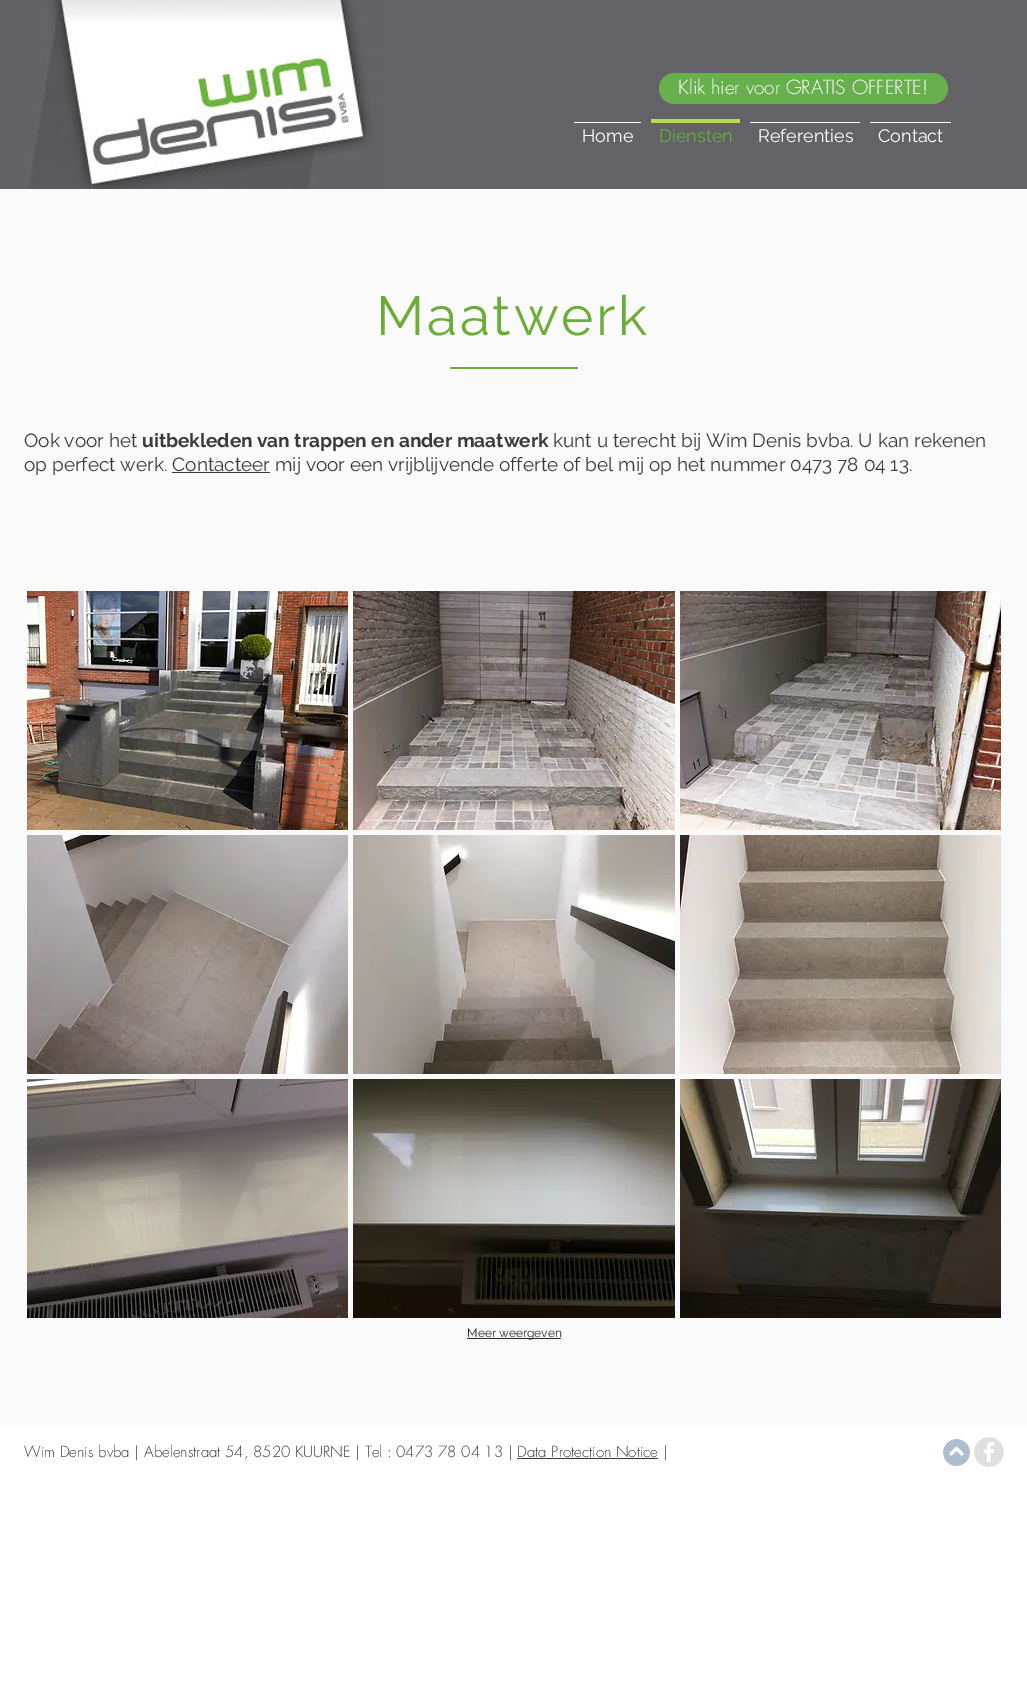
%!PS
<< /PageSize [1027 1698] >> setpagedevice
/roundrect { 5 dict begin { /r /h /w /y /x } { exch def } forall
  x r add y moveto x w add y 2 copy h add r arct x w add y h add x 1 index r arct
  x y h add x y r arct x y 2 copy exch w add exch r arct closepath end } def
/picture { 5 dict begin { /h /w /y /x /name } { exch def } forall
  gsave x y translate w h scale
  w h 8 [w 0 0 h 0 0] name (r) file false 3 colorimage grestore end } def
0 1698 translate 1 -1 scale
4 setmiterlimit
1 setgray
0 0 1027 1698 rectfill
(img1.rgb) 0 0 1027 189 picture
0.408 0.69 0.302 setrgbcolor
659 73 289 31 15.5 roundrect fill
/futura-Light [19 0 0 -19 0 0] selectfont
1 setgray
678 94 moveto (Klik hier voor GRATIS OFFERTE!) show
574 122 67 1 rectfill
/Raleway-Regular [18 0 0 -18 0 0] selectfont
582 142 moveto (Home) show
0.729 0.855 0.333 setrgbcolor
651 119 89 4 rectfill
0.42 0.678 0.212 setrgbcolor
659 142 moveto (Diensten) show
1 setgray
750 122 110 1 rectfill
758 142 moveto (Referenties) show
870 122 81 1 rectfill
878 142 moveto (Contact) show
0.98 setgray
0 189 1027 1238 rectfill
/Raleway-Regular [55 0 0 -55 0 0] selectfont
0.42 0.678 0.212 setrgbcolor
376 335 moveto 2.75 0 (Maatwerk) ashow
450 367 128 2 rectfill
/Raleway-Regular [19 0 0 -19 0 0] selectfont
0.231 0.227 0.227 setrgbcolor
24 447 moveto (Ook voor het) show
/Raleway-Bold [19 0 0 -19 0 0] selectfont
142 447 moveto (uitbekleden van trappen en ander maatwerk) show
/Raleway-Regular [19 0 0 -19 0 0] selectfont
553 447 moveto (kunt u terecht bij Wim Denis bvba. U kan rekenen) show
24 471 moveto (op perfect werk. Contacteer mij voor een vrijblijvende offerte of bel mij op het nummer 0473 78 04 13.) show
172 472 98 1 rectfill
(img2.rgb) 27 591 321 239 picture
(img3.rgb) 353 591 322 239 picture
(img4.rgb) 680 591 321 239 picture
(img5.rgb) 27 835 321 239 picture
(img6.rgb) 353 835 322 239 picture
(img7.rgb) 680 835 321 239 picture
(img8.rgb) 27 1079 321 239 picture
(img9.rgb) 353 1079 322 239 picture
(img10.rgb) 680 1079 321 239 picture
0.184 0.18 0.18 setrgbcolor
467 1338 94 1 rectfill
/Raleway-Regular [12 0 0 -12 0 0] selectfont
467 1337 moveto (Meer weergeven) show
/futura-Light [15 0 0 -15 0 0] selectfont
0.231 0.227 0.227 setrgbcolor
24 1457 moveto (Wim Denis bvba | Abelenstraat 54, 8520 KUURNE | Tel : 0473 78 04 13 | Data Protection Notice |) show
517 1458 141 1 rectfill
(img11.rgb) 943 1439 27 27 picture
(img12.rgb) 974 1437 30 30 picture
showpage
